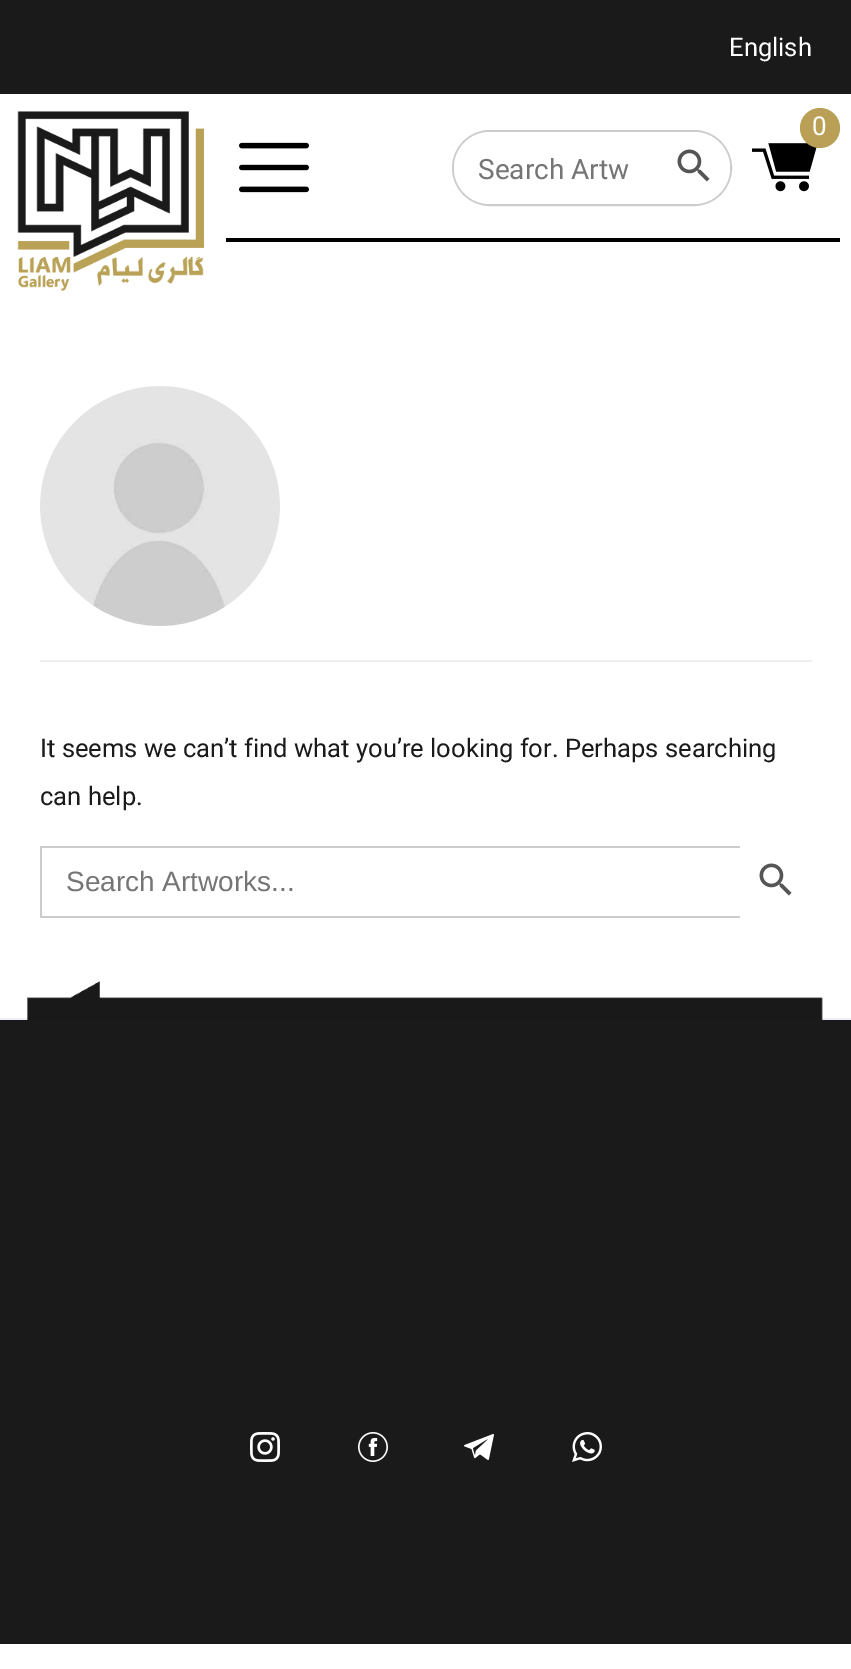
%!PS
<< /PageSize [851 1669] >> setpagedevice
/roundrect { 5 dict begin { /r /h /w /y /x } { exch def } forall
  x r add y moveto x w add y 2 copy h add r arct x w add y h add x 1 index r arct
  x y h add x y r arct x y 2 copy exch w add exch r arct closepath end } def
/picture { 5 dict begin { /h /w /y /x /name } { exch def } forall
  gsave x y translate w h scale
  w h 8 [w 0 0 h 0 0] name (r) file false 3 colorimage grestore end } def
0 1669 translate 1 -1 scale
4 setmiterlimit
1 setgray
0 0 851 1669 rectfill
0.102 setgray
0 0 851 94 rectfill
/Roboto-Regular [25.55 0 0 -25.55 0 0] selectfont
1 setgray
729 56 moveto (English) show
(img1.rgb) 17 111 187 181 picture
(img2.rgb) 239 142 70 51 picture
(img3.rgb) 752 143 65 49 picture
0.725 0.627 0.337 setrgbcolor
newpath 820 128 20 0 360 arc closepath fill
/Roboto-Regular [26 0 0 -26 0 0] selectfont
1 setgray
812 135 moveto (0) show
0.8 setgray
2 setlinewidth
453 131 278 74 37 roundrect stroke
1 setgray
newpath 490 132 moveto 658 132 lineto 658 204 lineto 490 204 lineto 470 204 454 188 454 168 curveto 454 148 470 132 490 132 curveto closepath fill
/Roboto-Regular [28 0 0 -28 0 0] selectfont
0.459 setgray
478 179 moveto (Search Artw) show
1 setgray
newpath 658 132 moveto 694 132 lineto 714 132 730 148 730 168 curveto 730 188 714 204 694 204 curveto 658 204 lineto closepath fill
(img4.rgb) 677 149 33 33 picture
0 setgray
226 238 614 4 rectfill
0.933 setgray
40 660 772 2 rectfill
(img5.rgb) 40 386 240 240 picture
/Roboto-Regular [25.55 0 0 -25.55 0 0] selectfont
0.102 setgray
40 757 moveto (It seems we can’t find what you’re looking for. Perhaps searching) show
40 805 moveto (can help.) show
0.8 setgray
40 846 700 2 rectfill
40 916 700 2 rectfill
40 846 2 72 rectfill
/LiberationSans-Regular [28 0 0 -28 0 0] selectfont
0.459 setgray
66 891 moveto (Search Artworks...) show
(img4.rgb) 759 863 33 33 picture
0.937 0.933 0.957 setrgbcolor
0 1018 851 2 rectfill
(img6.rgb) 27 981 796 39 picture
0.102 setgray
0 1020 851 624 rectfill
(img7.rgb) 250 1432 30 30 picture
(img8.rgb) 358 1432 30 30 picture
(img9.rgb) 464 1434 30 26 picture
(img10.rgb) 572 1432 30 30 picture
showpage
